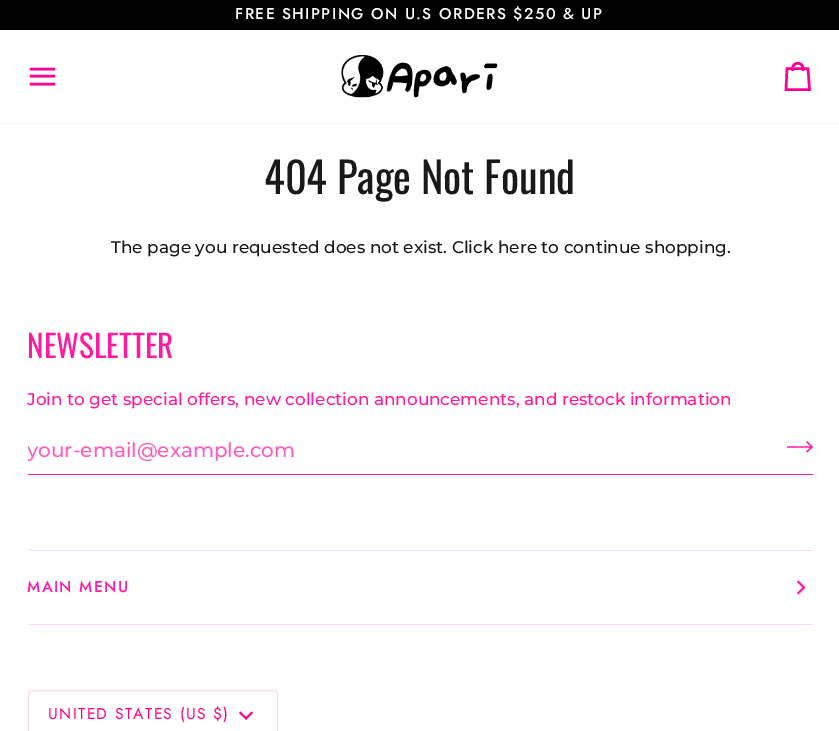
%!PS
<< /PageSize [839 731] >> setpagedevice
/roundrect { 5 dict begin { /r /h /w /y /x } { exch def } forall
  x r add y moveto x w add y 2 copy h add r arct x w add y h add x 1 index r arct
  x y h add x y r arct x y 2 copy exch w add exch r arct closepath end } def
/picture { 5 dict begin { /h /w /y /x /name } { exch def } forall
  gsave x y translate w h scale
  w h 8 [w 0 0 h 0 0] name (r) file false 3 colorimage grestore end } def
0 731 translate 1 -1 scale
4 setmiterlimit
1 setgray
0 0 839 731 rectfill
0 setgray
0 0 839 30 rectfill
/Jost-Medium [15.6 0 0 -15.6 0 0] selectfont
1 setgray
235 19 moveto 1.4 0 (FREE SHIPPING ON U.S ORDERS $250 & UP) ashow
0.969 setgray
0 123 839 1 rectfill
1 0 0.584 setrgbcolor
2.5 setlinewidth
2 setlinecap
newpath 54 69 moveto 31 69 lineto 54 76 moveto 31 76 lineto 54 84 moveto 31 84 lineto stroke
(img1.rgb) 341 55 157 43 picture
0 setlinecap
newpath 803 71 moveto 803 68.5 lineto 808 68.5 lineto 809.5 89.5 lineto 786 89.5 lineto 787 68.5 lineto 792.5 68.5 lineto 792.5 61.5 803 61.5 803 68.5 curveto 792.5 68.5 lineto 792.5 71 lineto stroke
/Oswald-Regular [42.5 0 0 -42.5 0 0] selectfont
0.094 0.098 0.098 setrgbcolor
264 194 moveto (404 Page Not Found) show
/Montserrat-Medium [16.9 0 0 -16.9 0 0] selectfont
111 253 moveto (The page you requested does not exist. Click here to continue shopping.) show
/Oswald-Regular [31.25 0 0 -31.25 0 0] selectfont
1 0.102 0.627 setrgbcolor
27 358 moveto (NEWSLETTER) show
/Montserrat-Medium [16.9 0 0 -16.9 0 0] selectfont
27 405 moveto (Join to get special offers, new collection announcements, and restock information) show
28 474 785 1 rectfill
gsave
28 438 731 23 rectclip
/Montserrat-Medium [20 0 0 -20 0 0] selectfont
1 0.373 0.737 setrgbcolor
27 457 moveto (your-email@example.com) show
grestore
1.3 setlinewidth
newpath 806.5 441.5 moveto 812 447 lineto 806.5 452 lineto 787 447 moveto 812 447 lineto stroke
1 0.851 0.945 setrgbcolor
28 550 785 1 rectfill
28 624 785 1 rectfill
/Jost-Medium [15.6 0 0 -15.6 0 0] selectfont
1 0.102 0.663 setrgbcolor
27 592 moveto 1.4 0 (MAIN MENU) ashow
1.9 setlinewidth
2 setlinecap
newpath 798.5 593 moveto 804 587.5 lineto 798.5 582 lineto stroke
1 0.851 0.925 setrgbcolor
1 setlinewidth
0 setlinecap
28.5 690.5 249 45 3.5 roundrect stroke
/Jost-Regular [15.6 0 0 -15.6 0 0] selectfont
1 0 0.506 setrgbcolor
48 719 moveto 1.4 0 (UNITED STATES \(US $\)) ashow
1.8 setlinewidth
2 setlinecap
newpath 240.5 713 moveto 246 718.5 lineto 251.5 713 lineto stroke
showpage
